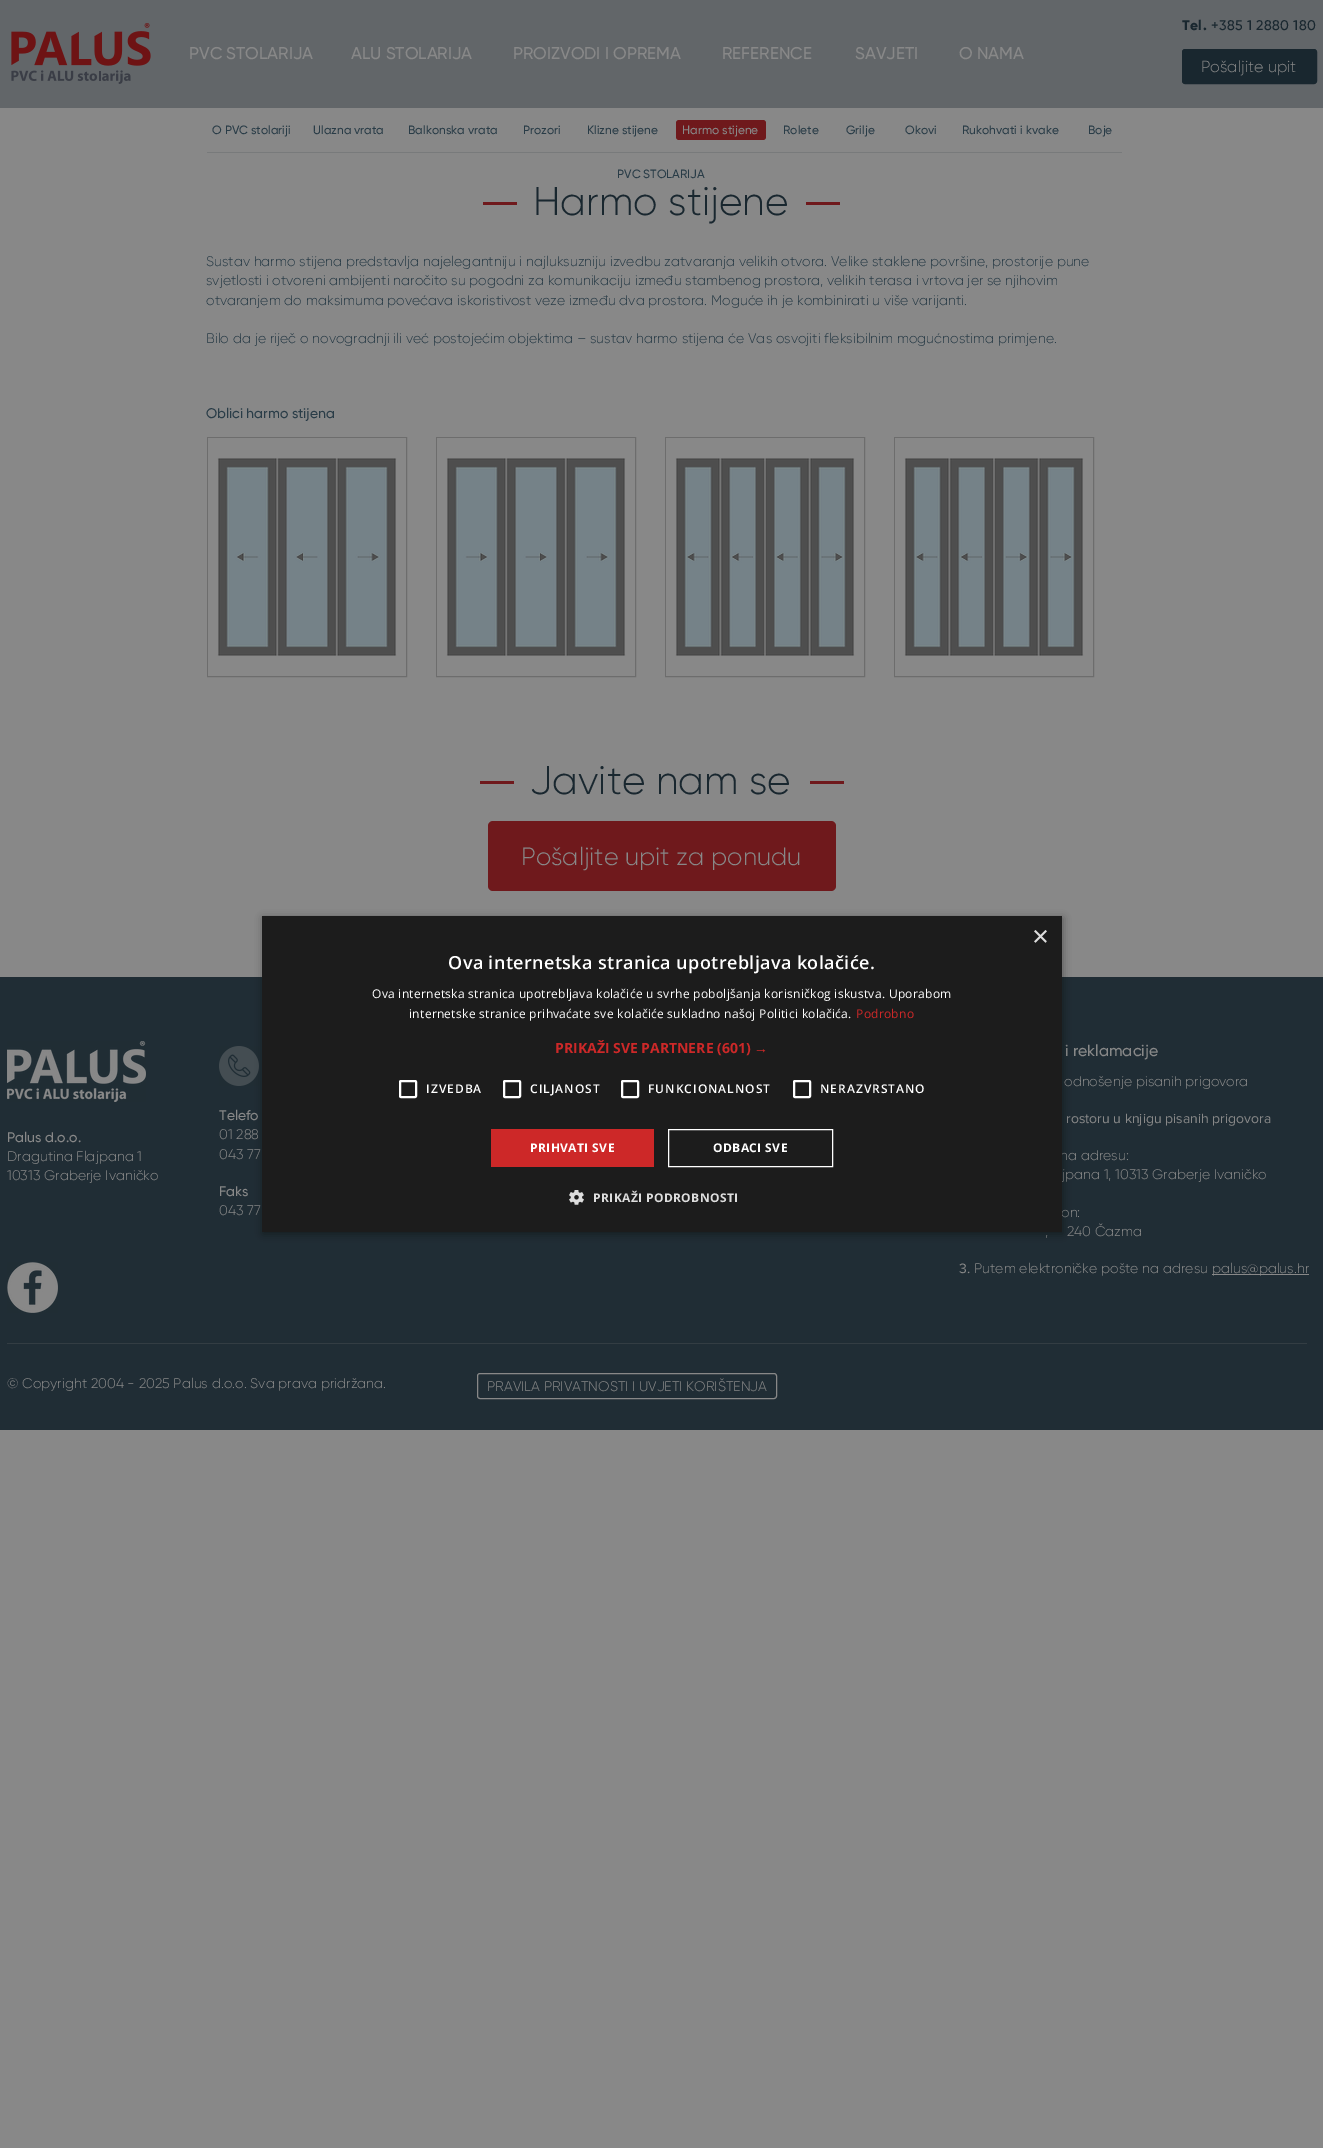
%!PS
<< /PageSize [1323 2148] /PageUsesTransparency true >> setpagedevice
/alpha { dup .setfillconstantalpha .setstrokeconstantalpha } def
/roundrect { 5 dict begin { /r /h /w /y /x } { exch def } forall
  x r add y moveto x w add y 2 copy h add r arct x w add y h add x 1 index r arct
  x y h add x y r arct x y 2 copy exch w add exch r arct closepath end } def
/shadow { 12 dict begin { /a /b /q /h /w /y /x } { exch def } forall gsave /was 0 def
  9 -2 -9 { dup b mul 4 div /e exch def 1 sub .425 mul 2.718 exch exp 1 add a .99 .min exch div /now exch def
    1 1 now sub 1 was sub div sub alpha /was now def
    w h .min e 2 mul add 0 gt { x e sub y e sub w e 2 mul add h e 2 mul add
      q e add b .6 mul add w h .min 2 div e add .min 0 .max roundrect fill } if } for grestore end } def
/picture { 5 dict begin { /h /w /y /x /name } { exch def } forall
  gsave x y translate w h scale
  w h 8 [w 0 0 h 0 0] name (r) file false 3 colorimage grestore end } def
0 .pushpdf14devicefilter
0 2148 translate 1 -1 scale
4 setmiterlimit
0.533 setgray
0 0 1323 2148 rectfill
0.384 0.4 0.412 setrgbcolor
0 0 1323 108 rectfill
(img1.rgb) 11 23 140 61 picture
/Gilroy-Medium [17 0 0 -17 0 0] selectfont
0.533 setgray
189 59 moveto (PVC STOLARIJA) show
351 59 moveto (ALU STOLARIJA) show
513 59 moveto (PROIZVODI I OPREMA) show
722 59 moveto (REFERENCE) show
855 59 moveto (SAVJETI) show
959 59 moveto (O NAMA) show
/Gilroy-ExtraBold [14 0 0 -14 0 0] selectfont
0.098 0.153 0.184 setrgbcolor
1182 30 moveto 0.4 0 (Tel.) ashow
/Gilroy-Medium [14 0 0 -14 0 0] selectfont
1211 30 moveto 0.4 0 (+385 1 2880 180) ashow
1182.5 49.5 134 34 2.5 roundrect gsave fill grestore
stroke
/Gilroy-Light [16 0 0 -16 0 0] selectfont
0.533 setgray
1201 72 moveto (Pošaljite upit) show
/Gilroy-Medium [12 0 0 -12 0 0] selectfont
0.161 0.235 0.278 setrgbcolor
212 134 moveto (O PVC stolariji) show
313 134 moveto (Ulazna vrata) show
408 134 moveto (Balkonska vrata) show
523 134 moveto (Prozori) show
587 134 moveto (Klizne stijene) show
0.435 0.098 0.11 setrgbcolor
676 120 90 20 3 roundrect fill
0.533 setgray
682 134 moveto (Harmo stijene) show
0.161 0.235 0.278 setrgbcolor
783 134 moveto (Rolete) show
846 134 moveto (Grilje) show
905 134 moveto (Okovi) show
962 134 moveto (Rukohvati i kvake) show
1088 134 moveto (Boje) show
0.471 0.478 0.482 setrgbcolor
207 152 915 1 rectfill
0.161 0.235 0.278 setrgbcolor
617 178 moveto (PVC STOLARIJA) show
0.435 0.098 0.11 setrgbcolor
483 202 34 3 rectfill
/Gilroy-Light [40 0 0 -40 0 0] selectfont
0.098 0.153 0.184 setrgbcolor
533 215 moveto (Harmo stijene) show
0.435 0.098 0.11 setrgbcolor
806 202 34 3 rectfill
/Gilroy-Light [14 0 0 -14 0 0] selectfont
0.161 0.235 0.278 setrgbcolor
206 266 moveto (Sustav harmo stijena predstavlja najelegantniju i najluksuzniju izvedbu zatvaranja velikih otvora. Velike staklene površine, prostorije pune) show
206 285 moveto (svjetlosti i otvoreni ambijenti naročito su pogodni za komunikaciju između stambenog prostora, velikih terasa i vrtova jer se njihovim) show
206 305 moveto (otvaranjem do maksimuma povećava iskoristivost veze između dva prostora. Moguće ih je kombinirati u više varijanti.) show
206 343 moveto (Bilo da je riječ o novogradnji ili već postojećim objektima – sustav harmo stijena će Vas osvojiti fleksibilnim mogućnostima primjene.) show
/Gilroy-Medium [14 0 0 -14 0 0] selectfont
206 418 moveto (Oblici harmo stijena) show
0.427 setgray
207.5 437.5 199 239 rectstroke
(img2.rgb) 208 438 198 238 picture
436.5 437.5 199 239 rectstroke
(img3.rgb) 437 438 198 238 picture
665.5 437.5 199 239 rectstroke
(img4.rgb) 666 438 198 238 picture
894.5 437.5 199 239 rectstroke
(img5.rgb) 895 438 198 238 picture
0.435 0.098 0.11 setrgbcolor
480 781 34 3 rectfill
/Gilroy-Light [40 0 0 -40 0 0] selectfont
0.098 0.153 0.184 setrgbcolor
530 794 moveto (Javite nam se) show
0.435 0.098 0.11 setrgbcolor
810 781 34 3 rectfill
488 821 348 70 5 roundrect fill
/Gilroy-Light [25 0 0 -25 0 0] selectfont
0.533 setgray
521 865 moveto (Pošaljite upit za ponudu) show
0.125 0.176 0.208 setrgbcolor
0 977 1323 453 rectfill
(img6.rgb) 7 1041 139 61 picture
(img7.rgb) 219 1046 40 40 picture
/Gilroy-Medium [16 0 0 -16 0 0] selectfont
0.533 setgray
1065 1056 moveto (i reklamacije) show
/Gilroy-Medium [14 0 0 -14 0 0] selectfont
7 1142 moveto (Palus d.o.o.) show
/Gilroy-Light [14 0 0 -14 0 0] selectfont
7 1161 moveto (Dragutina Flajpana 1) show
7 1180 moveto (10313 Graberje Ivaničko) show
/Gilroy-Medium [14 0 0 -14 0 0] selectfont
219 1120 moveto (Telefo) show
/Gilroy-Light [14 0 0 -14 0 0] selectfont
219 1139 moveto (01 288) show
219 1159 moveto (043 77) show
/Gilroy-Medium [14 0 0 -14 0 0] selectfont
219 1196 moveto (Faks) show
/Gilroy-Light [14 0 0 -14 0 0] selectfont
219 1215 moveto (043 77) show
1064 1086 moveto (odnošenje pisanih prigovora) show
/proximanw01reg-Regular [14 0 0 -14 0 0] selectfont
1066 1123 moveto (rostoru u knjigu pisanih prigovora) show
/Gilroy-Light [14 0 0 -14 0 0] selectfont
1060 1160 moveto (na adresu:) show
1062 1179 moveto (jpana 1, 10313 Graberje Ivaničko) show
1061 1217 moveto (on:) show
1045 1236 moveto (,) show
1067 1236 moveto (240 Čazma) show
/proximanw01reg-Regular [14 0 0 -14 0 0] selectfont
959 1273 moveto (3.) show
/Gilroy-Light [14 0 0 -14 0 0] selectfont
974 1273 moveto (Putem elektroničke pošte na adresu) show
1212 1274 97 1 rectfill
1212 1273 moveto (palus@palus.hr) show
(img8.rgb) 7 1262 51 51 picture
0.2 0.239 0.263 setrgbcolor
7 1343 1300 1 rectfill
0.533 setgray
7 1388 moveto (© Copyright 2004 - 2025 Palus d.o.o. Sva prava pridržana.) show
477.5 1373.5 299 25 2.5 roundrect stroke
487 1391 moveto (PRAVILA PRIVATNOSTI I UVJETI KORIŠTENJA) show
0 setgray
263 918 800 316 0 4 0.35 shadow
0.11 setgray
262 916 800 316 rectfill
/LiberationSans-Regular [29 0 0 -29 0 0] selectfont
0.867 setgray
1032 946 moveto (×) show
/OpenSans-SemiBold [18 0 0 -18 0 0] selectfont
1 setgray
448 969 moveto 0.4 0 (Ova internetska stranica upotrebljava kolačiće.) ashow
/OpenSans-Regular [12 0 0 -12 0 0] selectfont
372 998 moveto 0.3 0 (Ova internetska stranica upotrebljava kolačiće u svrhe poboljšanja korisničkog iskustva. Uporabom) ashow
409 1018 moveto 0.3 0 (internetske stranice prihvaćate sve kolačiće sukladno našoj Politici kolačića.) ashow
0.804 0.157 0.157 setrgbcolor
856 1018 moveto 0.3 0 (Podrobno) ashow
/OpenSans-Bold [14 0 0 -14 0 0] selectfont
555 1053 moveto (PRIKAŽI SVE PARTNERE \(601\)) show
/LiberationSans-Bold [14 0 0 -14 0 0] selectfont
754 1053 moveto (→) show
1 setgray
2 setlinewidth
400 1081 16 16 1 roundrect stroke
/OpenSans-SemiBold [12 0 0 -12 0 0] selectfont
426 1093 moveto 1 0 (IZVEDBA) ashow
504 1081 16 16 1 roundrect stroke
530 1093 moveto 1 0 (CILJANOST) ashow
622 1081 16 16 1 roundrect stroke
648 1093 moveto 1 0 (FUNKCIONALNOST) ashow
794 1081 16 16 1 roundrect stroke
820 1093 moveto 1 0 (NERAZVRSTANO) ashow
0.804 0.157 0.157 setrgbcolor
491 1129 163 38 rectfill
/OpenSans-Bold [12 0 0 -12 0 0] selectfont
1 setgray
530 1152 moveto 0.4 0 (PRIHVATI SVE) ashow
1 setlinewidth
668.5 1129.5 164 37 rectstroke
713 1152 moveto 0.4 0 (ODBACI SVE) ashow
(img9.rgb) 569 1190 15 15 picture
0.867 setgray
593 1202 moveto 0.4 0 (PRIKAŽI PODROBNOSTI) ashow
.poppdf14devicefilter showpage
